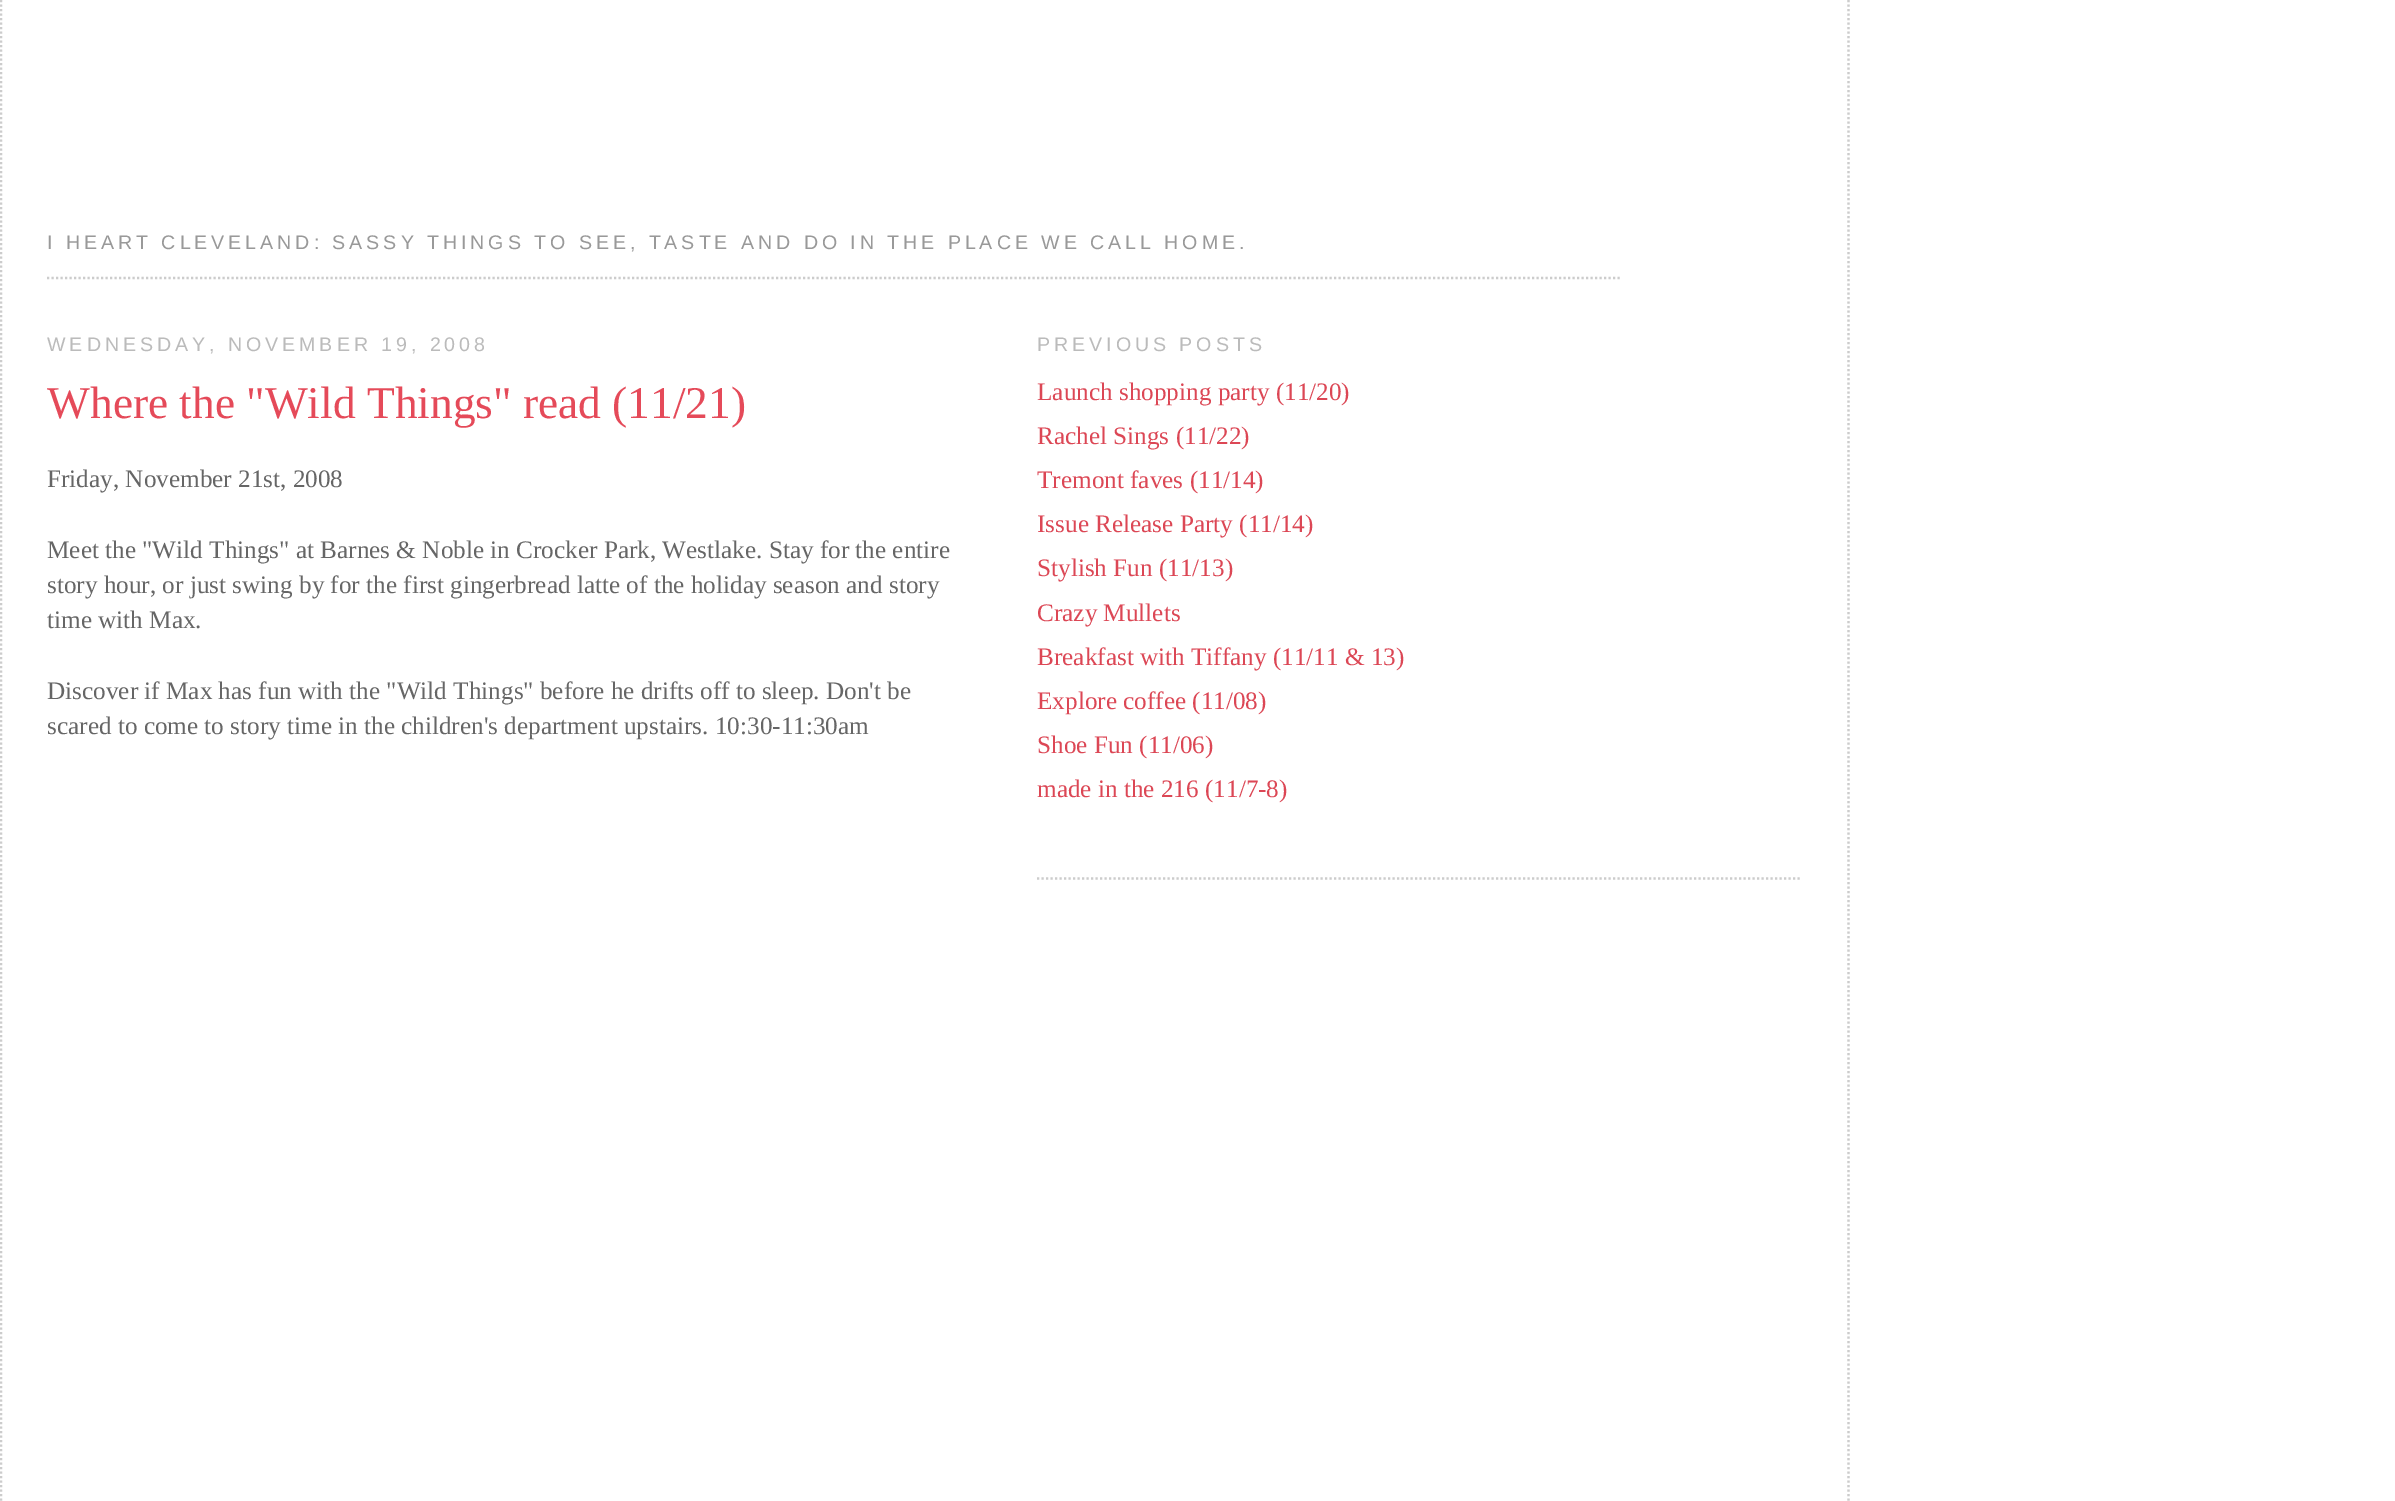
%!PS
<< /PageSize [2395 1501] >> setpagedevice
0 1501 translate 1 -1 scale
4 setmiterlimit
1 setgray
0 0 2395 1501 rectfill
0.8 setgray
2.2 setlinewidth
[2.25 2.25] 0 setdash
newpath 1848.5 0 moveto 1848.5 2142 lineto stroke
newpath 1 0 moveto 1 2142 lineto stroke
newpath 47 278 moveto 1622 278 lineto stroke
/LiberationSans-Regular [19.65 0 0 -19.65 0 0] selectfont
0.6 setgray
47 249 moveto 3.93 0 (I HEART CLEVELAND: SASSY THINGS TO SEE, TASTE AND DO IN THE PLACE WE CALL HOME.) ashow
0.733 setgray
47 351 moveto 3.93 0 (WEDNESDAY, NOVEMBER 19, 2008) ashow
/LiberationSerif-Regular [45.4 0 0 -45.4 0 0] selectfont
0.898 0.29 0.349 setrgbcolor
47 418 moveto (Where the "Wild Things" read \(11/21\)) show
/LiberationSerif-Regular [25.2 0 0 -25.2 0 0] selectfont
0.4 setgray
47 487 moveto (Friday, November 21st, 2008) show
47 558 moveto (Meet the "Wild Things" at Barnes & Noble in Crocker Park, Westlake. Stay for the entire) show
47 593 moveto (story hour, or just swing by for the first gingerbread latte of the holiday season and story) show
47 628 moveto (time with Max.) show
47 699 moveto (Discover if Max has fun with the "Wild Things" before he drifts off to sleep. Don't be) show
47 734 moveto (scared to come to story time in the children's department upstairs. 10:30-11:30am) show
/LiberationSans-Regular [19.65 0 0 -19.65 0 0] selectfont
0.733 setgray
1037 351 moveto 3.93 0 (PREVIOUS POSTS) ashow
0.8 setgray
newpath 1037 878.5 moveto 1802 878.5 lineto stroke
/LiberationSerif-Regular [25.2 0 0 -25.2 0 0] selectfont
0.863 0.278 0.333 setrgbcolor
1037 400 moveto (Launch shopping party \(11/20\)) show
1037 444 moveto (Rachel Sings \(11/22\)) show
1037 488 moveto (Tremont faves \(11/14\)) show
1037 532 moveto (Issue Release Party \(11/14\)) show
1037 576 moveto (Stylish Fun \(11/13\)) show
1037 621 moveto (Crazy Mullets) show
1037 665 moveto (Breakfast with Tiffany \(11/11 & 13\)) show
1037 709 moveto (Explore coffee \(11/08\)) show
1037 753 moveto (Shoe Fun \(11/06\)) show
1037 797 moveto (made in the 216 \(11/7-8\)) show
showpage
